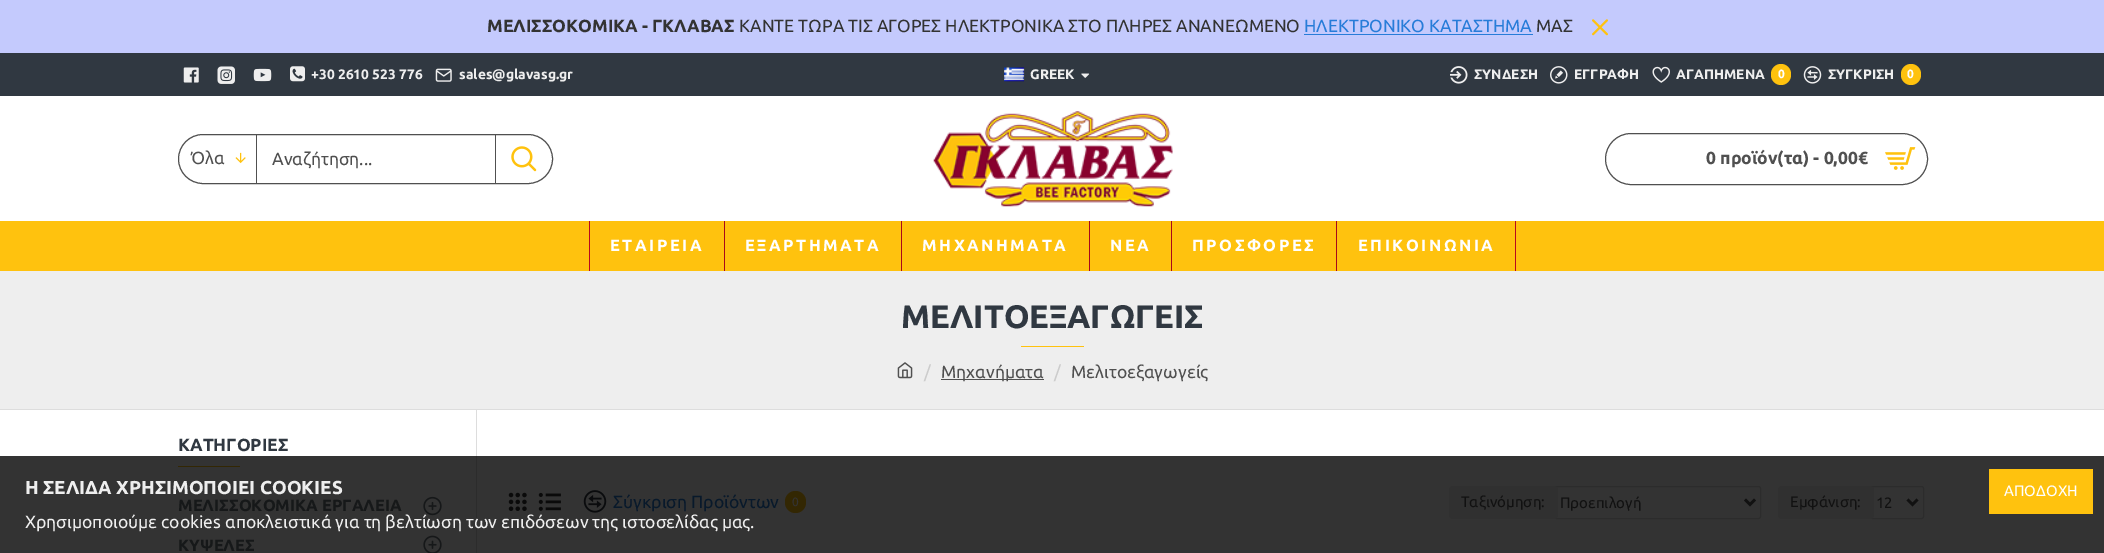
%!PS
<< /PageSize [2104 553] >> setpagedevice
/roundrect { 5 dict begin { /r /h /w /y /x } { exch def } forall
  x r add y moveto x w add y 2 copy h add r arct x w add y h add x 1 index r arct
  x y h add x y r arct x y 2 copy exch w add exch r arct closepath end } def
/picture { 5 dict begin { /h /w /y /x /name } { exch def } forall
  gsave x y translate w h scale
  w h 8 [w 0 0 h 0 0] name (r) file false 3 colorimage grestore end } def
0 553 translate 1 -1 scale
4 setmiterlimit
1 setgray
0 0 2104 553 rectfill
0.2 setgray
0 456 2104 97 rectfill
0.769 0.792 0.992 setrgbcolor
0 0 2104 53 rectfill
/Ubuntu-Bold [17.5 0 0 -17.5 0 0] selectfont
0.2 setgray
487 32 moveto (ΜΕΛΙΣΣΟΚΟΜΙΚΑ - ΓΚΛΑΒΑΣ) show
/Ubuntu-Regular [17.5 0 0 -17.5 0 0] selectfont
739 32 moveto (ΚΑΝΤΕ ΤΩΡΑ ΤΙΣ ΑΓΟΡΕΣ ΗΛΕΚΤΡΟΝΙΚΑ ΣΤΟ ΠΛΗΡΕΣ ΑΝΑΝΕΩΜΕΝΟ) show
0.153 0.486 0.851 setrgbcolor
1304 32 moveto (ΗΛΕΚΤΡΟΝΙΚΟ ΚΑΤΑΣΤΗΜΑ) show
1304 34 229 1 rectfill
0.2 setgray
1536 32 moveto (ΜΑΣ) show
(img1.rgb) 1592 19 16 17 picture
0.188 0.22 0.255 setrgbcolor
0 53 2104 43 rectfill
(img2.rgb) 183 67 16 16 picture
(img3.rgb) 217 66 18 18 picture
(img4.rgb) 253 68 19 14 picture
(img5.rgb) 290 66 15 16 picture
/Ubuntu-Bold [13.75 0 0 -13.75 0 0] selectfont
0.933 setgray
311 79 moveto (+30 2610 523 776) show
(img6.rgb) 435 68 17 14 picture
459 79 moveto (sales@glavasg.gr) show
(img7.rgb) 1004 67 21 15 picture
1030 79 moveto (GREEK) show
(img8.rgb) 1081 73 9 5 picture
(img9.rgb) 1450 66 18 18 picture
1474 79 moveto (ΣΥΝΔΕΣΗ) show
(img10.rgb) 1550 66 18 18 picture
1574 79 moveto (ΕΓΓΡΑΦΗ) show
(img11.rgb) 1652 66 18 17 picture
1676 79 moveto (ΑΓΑΠΗΜΕΝΑ) show
1 0.761 0.055 setrgbcolor
1771 64 20 21 10 roundrect fill
/Ubuntu-Bold [12 0 0 -12 0 0] selectfont
1 setgray
1778 78 moveto (0) show
(img12.rgb) 1803 66 19 18 picture
/Ubuntu-Bold [13.75 0 0 -13.75 0 0] selectfont
0.933 setgray
1828 79 moveto (ΣΥΓΚΡΙΣΗ) show
1 0.761 0.055 setrgbcolor
1901 64 20 21 10 roundrect fill
/Ubuntu-Bold [12 0 0 -12 0 0] selectfont
1 setgray
1907 78 moveto (0) show
0.314 setgray
178.5 134.5 374 49 24.5 roundrect stroke
256 135 1 48 rectfill
/Ubuntu-Regular [17.5 0 0 -17.5 0 0] selectfont
191 164 moveto (Όλα) show
(img13.rgb) 235 152 11 12 picture
272 165 moveto (Αναζήτηση...) show
495 135 1 48 rectfill
(img14.rgb) 511 146 26 26 picture
(img15.rgb) 933 111 240 96 picture
1605.5 133.5 322 51 25.5 roundrect stroke
/Ubuntu-Bold [17.5 0 0 -17.5 0 0] selectfont
1706 164 moveto (0 προϊόν\(τα\) - 0,00€) show
(img16.rgb) 1885 147 31 23 picture
1 0.761 0.055 setrgbcolor
0 221 2104 50 rectfill
0.725 0.035 0.118 setrgbcolor
1515 221 1 50 rectfill
589 221 1 50 rectfill
/Ubuntu-Bold [16.25 0 0 -16.25 0 0] selectfont
1 setgray
610 251 moveto 2.5 0 (ΕΤΑΙΡΕΙΑ) ashow
0.659 0.031 0.106 setrgbcolor
724 221 1 50 rectfill
1 setgray
745 251 moveto 2.5 0 (ΕΞΑΡΤΗΜΑΤΑ) ashow
0.659 0.031 0.106 setrgbcolor
901 221 1 50 rectfill
1 setgray
922 251 moveto 2.5 0 (MHXANHMATA) ashow
0.659 0.031 0.106 setrgbcolor
1089 221 1 50 rectfill
1 setgray
1110 251 moveto 2.5 0 (ΝΕΑ) ashow
0.659 0.031 0.106 setrgbcolor
1171 221 1 50 rectfill
1 setgray
1192 251 moveto 2.5 0 (ΠΡΟΣΦΟΡΕΣ) ashow
0.659 0.031 0.106 setrgbcolor
1336 221 1 50 rectfill
1 setgray
1358 251 moveto 2.5 0 (ΕΠΙΚΟΙΝΩΝΙΑ) ashow
0.933 setgray
0 271 2104 138 rectfill
/Ubuntu-Bold [32.5 0 0 -32.5 0 0] selectfont
0.188 0.22 0.255 setrgbcolor
901 328 moveto (ΜΕΛΙΤΟΕΞΑΓΩΓΕΙΣ) show
1 0.761 0.055 setrgbcolor
1021 346 63 1 rectfill
0.867 setgray
0 409 2104 1 rectfill
(img17.rgb) 897 362 16 17 picture
/Ubuntu-Regular [17.5 0 0 -17.5 0 0] selectfont
0.8 setgray
924 378 moveto (/) show
0.314 setgray
941 379 103 1 rectfill
941 378 moveto (Μηχανήματα) show
0.8 setgray
1054 378 moveto (/) show
0.314 setgray
1071 378 moveto (Μελιτοεξαγωγείς) show
0.867 setgray
476 410 1 46 rectfill
0.173 setgray
476 456 1 97 rectfill
/Ubuntu-Bold [17.5 0 0 -17.5 0 0] selectfont
0.188 0.22 0.255 setrgbcolor
178 451 moveto (ΚΑΤΗΓΟΡΙΕΣ) show
0.2 0.153 0.012 setrgbcolor
178 466 62 1 rectfill
/Ubuntu-Bold [16.25 0 0 -16.25 0 0] selectfont
0.086 0.094 0.098 setrgbcolor
178 511 moveto (ΜΕΛΙΣΣΟΚΟΜΙΚΑ ΕΡΓΑΛΕΙΑ) show
(img18.rgb) 423 496 19 20 picture
178 551 moveto (ΚΥΨΕΛΕΣ) show
(img19.rgb) 423 535 19 18 picture
(img20.rgb) 508 492 19 19 picture
(img21.rgb) 538 492 23 19 picture
(img22.rgb) 583 490 24 23 picture
/Ubuntu-Regular [17.5 0 0 -17.5 0 0] selectfont
0.031 0.098 0.169 setrgbcolor
613 508 moveto (Σύγκριση Προϊόντων) show
0.2 0.153 0.012 setrgbcolor
785 491 21 22 10.5 roundrect fill
/Ubuntu-Regular [12 0 0 -12 0 0] selectfont
0.2 setgray
792 506 moveto (0) show
0.173 setgray
1554.5 486.5 206 32 2 roundrect stroke
0.188 setgray
1449 486 109 33 4 roundrect fill
/Ubuntu-Regular [15 0 0 -15 0 0] selectfont
0.067 setgray
1461 507 moveto (Ταξινόμηση:) show
2.5 setlinewidth
newpath 1745 499.5 moveto 1750 504.5 lineto 1755 499.5 lineto stroke
1560 508 moveto (Προεπιλογή) show
0.173 setgray
1 setlinewidth
1870.5 486.5 53 32 2 roundrect stroke
0.188 setgray
1778 486 96 33 4 roundrect fill
0.067 setgray
1790 507 moveto (Εμφάνιση:) show
2.5 setlinewidth
newpath 1907.5 499.5 moveto 1912.5 504.5 lineto 1917.5 499.5 lineto stroke
1876 508 moveto (12) show
/Ubuntu-Bold [18.75 0 0 -18.75 0 0] selectfont
0.933 setgray
25 494 moveto (Η ΣΕΛΙΔΑ ΧΡΗΣΙΜΟΠΟΙΕΙ COOKIES) show
/Ubuntu-Regular [17.5 0 0 -17.5 0 0] selectfont
25 528 moveto (Χρησιμοποιούμε cookies αποκλειστικά για τη βελτίωση των επιδόσεων της ιστοσελίδας μας.) show
1 0.761 0.055 setrgbcolor
1989 469 104 45 rectfill
/Ubuntu-Regular [15 0 0 -15 0 0] selectfont
1 setgray
2004 496 moveto (ΑΠΟΔΟΧΗ) show
showpage
